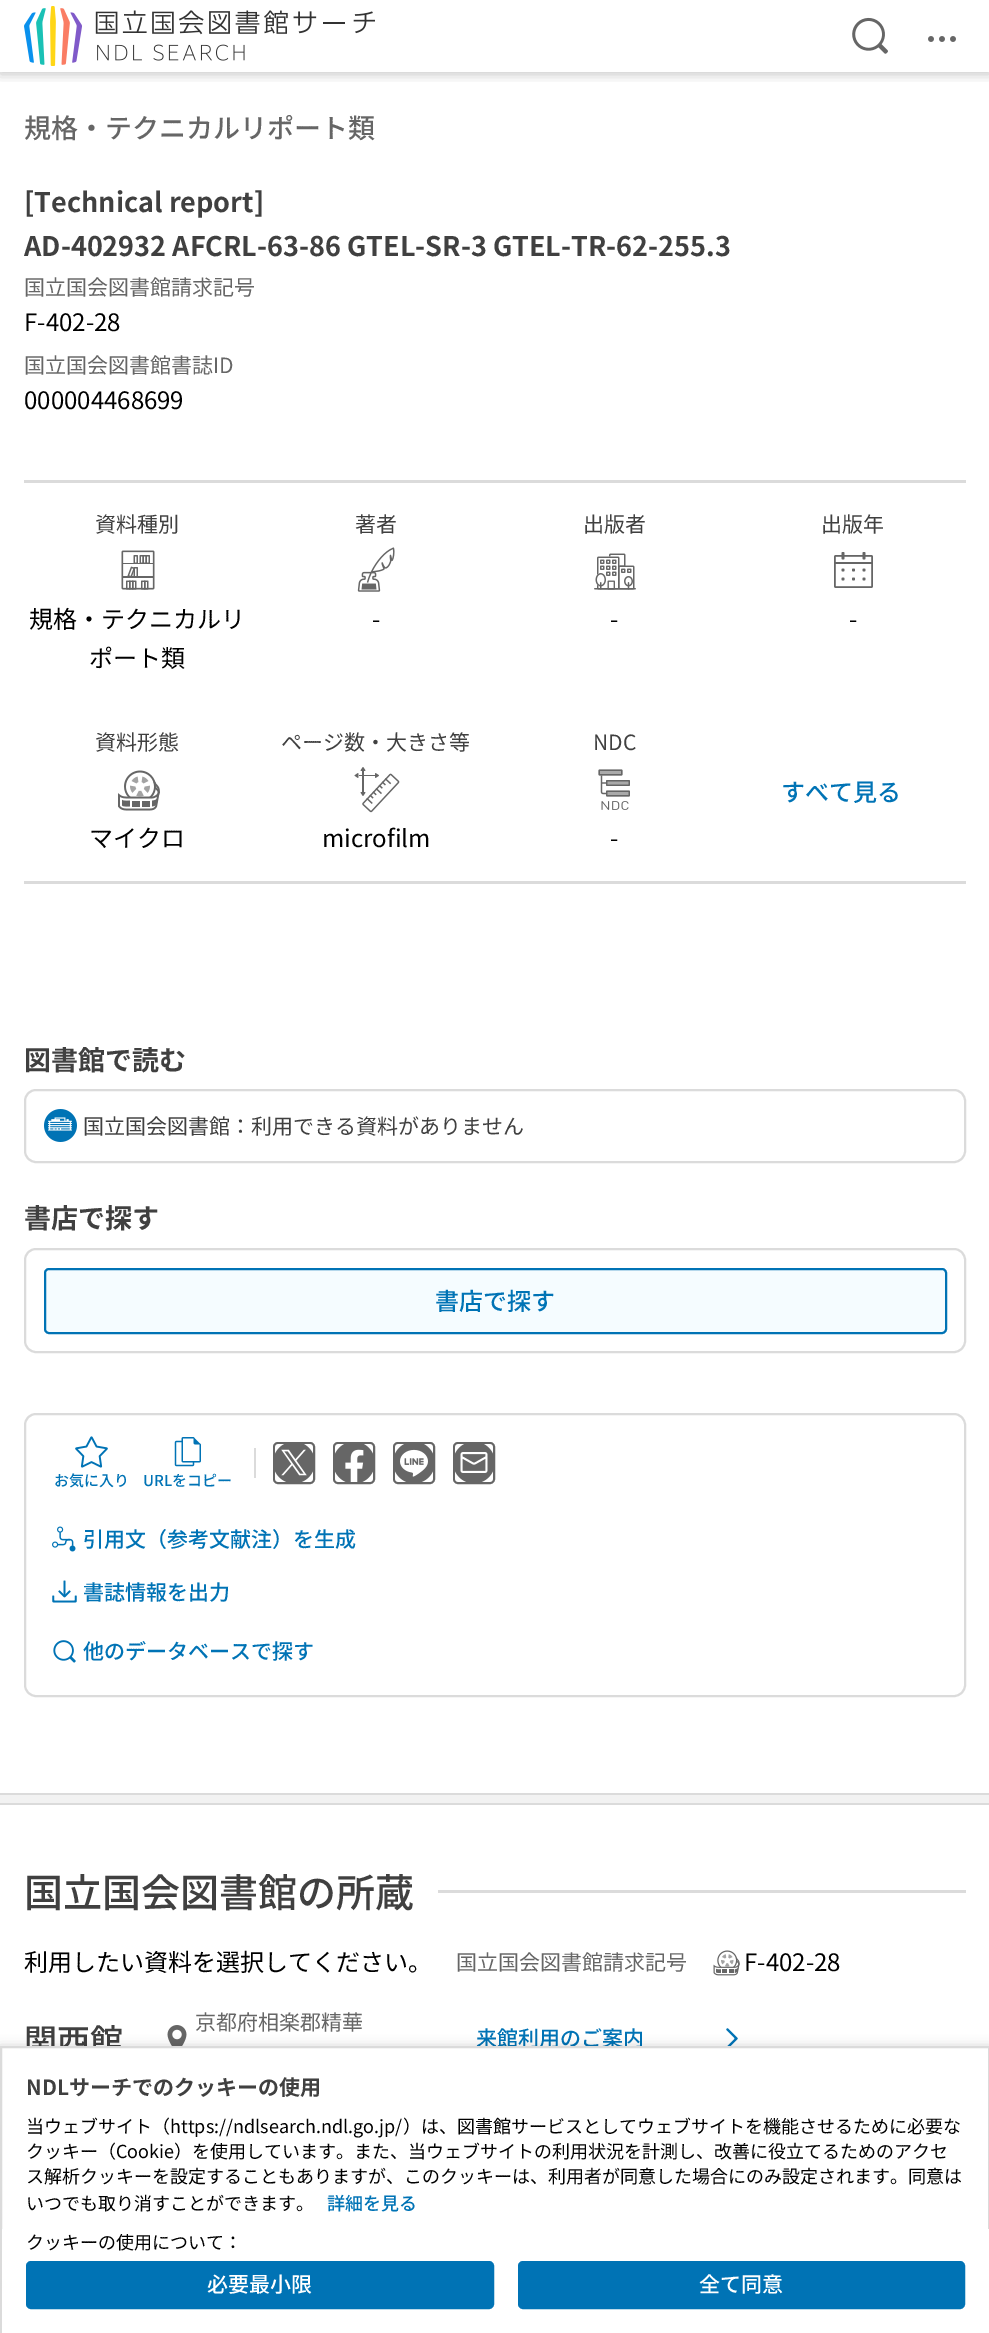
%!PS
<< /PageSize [989 2333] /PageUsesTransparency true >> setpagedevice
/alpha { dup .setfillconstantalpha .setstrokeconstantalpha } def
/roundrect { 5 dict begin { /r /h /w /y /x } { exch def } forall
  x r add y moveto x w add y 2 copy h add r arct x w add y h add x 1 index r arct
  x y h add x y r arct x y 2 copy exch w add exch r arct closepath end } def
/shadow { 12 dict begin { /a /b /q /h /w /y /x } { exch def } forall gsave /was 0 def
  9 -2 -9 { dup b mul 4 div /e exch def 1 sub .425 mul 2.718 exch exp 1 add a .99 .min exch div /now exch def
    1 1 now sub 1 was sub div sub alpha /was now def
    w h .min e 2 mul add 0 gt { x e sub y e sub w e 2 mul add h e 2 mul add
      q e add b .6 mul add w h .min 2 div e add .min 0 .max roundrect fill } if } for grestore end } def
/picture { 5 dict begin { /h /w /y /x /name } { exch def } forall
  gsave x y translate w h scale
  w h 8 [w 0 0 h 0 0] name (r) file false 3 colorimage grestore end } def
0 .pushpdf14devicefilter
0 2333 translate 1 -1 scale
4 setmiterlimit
1 setgray
0 0 989 2333 rectfill
gsave
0 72 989 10 rectclip
0 setgray
0 2 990 72 0 6 0.24 shadow
grestore
(img1.rgb) 24 6 351 60 picture
(img2.rgb) 852 17 36 37 picture
(img3.rgb) 928 36 28 6 picture
/NotoSansJP-Medium [27 0 0 -27 0 0] selectfont
0.4 setgray
24 138 moveto (規格・テクニカルリポート類) show
/NotoSansJP-Bold [27 0 0 -27 0 0] selectfont
0.251 setgray
24 212 moveto ([Technical report]) show
24 256 moveto (AD-402932 AFCRL-63-86 GTEL-SR-3 GTEL-TR-62-255.3) show
/NotoSansJP-Regular [21 0 0 -21 0 0] selectfont
0.4 setgray
24 295 moveto (国立国会図書館請求記号) show
/NotoSansJP-Regular [24 0 0 -24 0 0] selectfont
0 setgray
24 331 moveto (F-402-28) show
/NotoSansJP-Regular [21 0 0 -21 0 0] selectfont
0.4 setgray
24 373 moveto (国立国会図書館書誌ID) show
/NotoSansJP-Regular [24 0 0 -24 0 0] selectfont
0 setgray
24 409 moveto (000004468699) show
0.859 setgray
24 480 942 3 rectfill
/NotoSansJP-Regular [21 0 0 -21 0 0] selectfont
0.251 setgray
95 532 moveto (資料種別) show
(img4.rgb) 121 550 34 40 picture
/NotoSansJP-Regular [24 0 0 -24 0 0] selectfont
0 setgray
29 628 moveto (規格・テクニカルリ) show
89 667 moveto (ポート類) show
/NotoSansJP-Regular [21 0 0 -21 0 0] selectfont
0.251 setgray
355 532 moveto (著者) show
(img5.rgb) 357 547 38 45 picture
/NotoSansJP-Regular [24 0 0 -24 0 0] selectfont
0 setgray
372 628 moveto (-) show
/NotoSansJP-Regular [21 0 0 -21 0 0] selectfont
0.251 setgray
583 532 moveto (出版者) show
(img6.rgb) 594 553 42 37 picture
/NotoSansJP-Regular [24 0 0 -24 0 0] selectfont
0 setgray
610 628 moveto (-) show
/NotoSansJP-Regular [21 0 0 -21 0 0] selectfont
0.251 setgray
821 532 moveto (出版年) show
(img7.rgb) 834 552 39 36 picture
/NotoSansJP-Regular [24 0 0 -24 0 0] selectfont
0 setgray
849 628 moveto (-) show
/NotoSansJP-Regular [21 0 0 -21 0 0] selectfont
0.251 setgray
95 750 moveto (資料形態) show
(img8.rgb) 118 770 42 41 picture
/NotoSansJP-Regular [24 0 0 -24 0 0] selectfont
0 setgray
89 847 moveto (マイクロ) show
/NotoSansJP-Regular [21 0 0 -21 0 0] selectfont
0.251 setgray
281 750 moveto (ページ数・大きさ等) show
(img9.rgb) 354 767 46 46 picture
/NotoSansJP-Regular [24 0 0 -24 0 0] selectfont
0 setgray
322 847 moveto (microfilm) show
/NotoSansJP-Regular [21 0 0 -21 0 0] selectfont
0.251 setgray
593 750 moveto (NDC) show
(img10.rgb) 598 769 32 41 picture
/NotoSansJP-Regular [24 0 0 -24 0 0] selectfont
0 setgray
610 847 moveto (-) show
/NotoSansJP-Medium [24 0 0 -24 0 0] selectfont
0 0.451 0.71 setrgbcolor
781 801 moveto (すべて見る) show
0.859 setgray
24 881 942 3 rectfill
/NotoSansJP-Bold [27 0 0 -27 0 0] selectfont
0.251 setgray
24 1070 moveto (図書館で読む) show
0.859 setgray
2 setlinewidth
25 1090 940 72 11 roundrect stroke
(img11.rgb) 44 1109 33 33 picture
/NotoSansJP-Regular [21 0 0 -21 0 0] selectfont
0.251 setgray
83 1134 moveto (国立国会図書館：利用できる資料がありません) show
/NotoSansJP-Bold [27 0 0 -27 0 0] selectfont
24 1228 moveto (書店で探す) show
0.859 setgray
25 1249 940 103 11 roundrect stroke
0.961 0.988 1 setrgbcolor
45 1269 901 64 4 roundrect gsave fill grestore
0 0.451 0.71 setrgbcolor
stroke
/NotoSansJP-Medium [24 0 0 -24 0 0] selectfont
435 1310 moveto (書店で探す) show
0.859 setgray
25 1414 940 282 11 roundrect stroke
254 1448 2 30 rectfill
0.4 setgray
274 1443 40 40 4 roundrect stroke
(img12.rgb) 275 1444 38 38 picture
334 1443 40 40 4 roundrect stroke
(img13.rgb) 335 1444 38 38 picture
394 1443 40 40 4 roundrect stroke
(img14.rgb) 395 1444 38 38 picture
454 1443 40 40 4 roundrect stroke
(img15.rgb) 455 1444 38 38 picture
(img16.rgb) 75 1436 33 32 picture
/NotoSansJP-Medium [15 0 0 -15 0 0] selectfont
0 0.451 0.71 setrgbcolor
54 1486 moveto (お気に入り) show
(img17.rgb) 174 1437 27 30 picture
143 1486 moveto (URLをコピー) show
(img18.rgb) 52 1526 24 26 picture
/NotoSansJP-Medium [21 0 0 -21 0 0] selectfont
83 1547 moveto (引用文（参考文献注）を生成) show
(img19.rgb) 52 1580 25 23 picture
83 1600 moveto (書誌情報を出力) show
(img20.rgb) 53 1640 23 23 picture
83 1659 moveto (他のデータベースで探す) show
0.949 setgray
0 1795 989 8 rectfill
0.859 setgray
0 1793 989 2 rectfill
0 1803 989 2 rectfill
/NotoSansJP-Medium [39 0 0 -39 0 0] selectfont
0.251 setgray
24 1907 moveto (国立国会図書館の所蔵) show
0.859 setgray
438 1890 528 3 rectfill
/NotoSansJP-Regular [24 0 0 -24 0 0] selectfont
0 setgray
24 1971 moveto (利用したい資料を選択してください。) show
/NotoSansJP-Regular [21 0 0 -21 0 0] selectfont
0.4 setgray
456 1970 moveto (国立国会図書館請求記号) show
(img21.rgb) 713 1950 27 26 picture
/NotoSansJP-Regular [24 0 0 -24 0 0] selectfont
0 setgray
744 1971 moveto (F-402-28) show
/NotoSansJP-Medium [33 0 0 -33 0 0] selectfont
0.251 setgray
24 2053 moveto (関西館) show
/NotoSansJP-Regular [21 0 0 -21 0 0] selectfont
0.4 setgray
195 2030 moveto (京都府相楽郡精華) show
(img22.rgb) 167 2025 20 21 picture
/NotoSansJP-Medium [21 0 0 -21 0 0] selectfont
0 0.451 0.71 setrgbcolor
476 2046 moveto (来館利用のご案内) show
(img23.rgb) 726 2028 12 18 picture
0 setgray
0 2048 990 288 0 6 0.24 shadow
1 setgray
2 2048 986 181 rectfill
0.859 setgray
1 2047 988 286 rectstroke
/NotoSansJP-Bold [21 0 0 -21 0 0] selectfont
0.251 setgray
26 2095 moveto (NDLサーチでのクッキーの使用) show
/NotoSansJP-Regular [18 0 0 -18 0 0] selectfont
0 setgray
26 2133 moveto (当ウェブサイト（https://ndlsearch.ndl.go.jp/）は、図書館サービスとしてウェブサイトを機能させるために必要な) show
26 2158 moveto (クッキー（Cookie）を使用しています。また、当ウェブサイトの利用状況を計測し、改善に役立てるためのアクセ) show
26 2183 moveto (ス解析クッキーを設定することもありますが、このクッキーは、利用者が同意した場合にのみ設定されます。同意は) show
26 2210 moveto (いつでも取り消すことができます。) show
/NotoSansJP-Medium [18 0 0 -18 0 0] selectfont
0 0.451 0.71 setrgbcolor
327 2210 moveto (詳細を見る) show
1 setgray
2 2229 987 104 rectfill
/NotoSansJP-Regular [18 0 0 -18 0 0] selectfont
0 setgray
26 2249 moveto (クッキーの使用について：) show
0 0.451 0.71 setrgbcolor
27 2262 466 46 4 roundrect gsave fill grestore
stroke
/NotoSansJP-Medium [21 0 0 -21 0 0] selectfont
1 setgray
207 2292 moveto (必要最小限) show
0 0.451 0.71 setrgbcolor
519 2262 445 46 4 roundrect gsave fill grestore
stroke
1 setgray
699 2292 moveto (全て同意) show
.poppdf14devicefilter showpage
